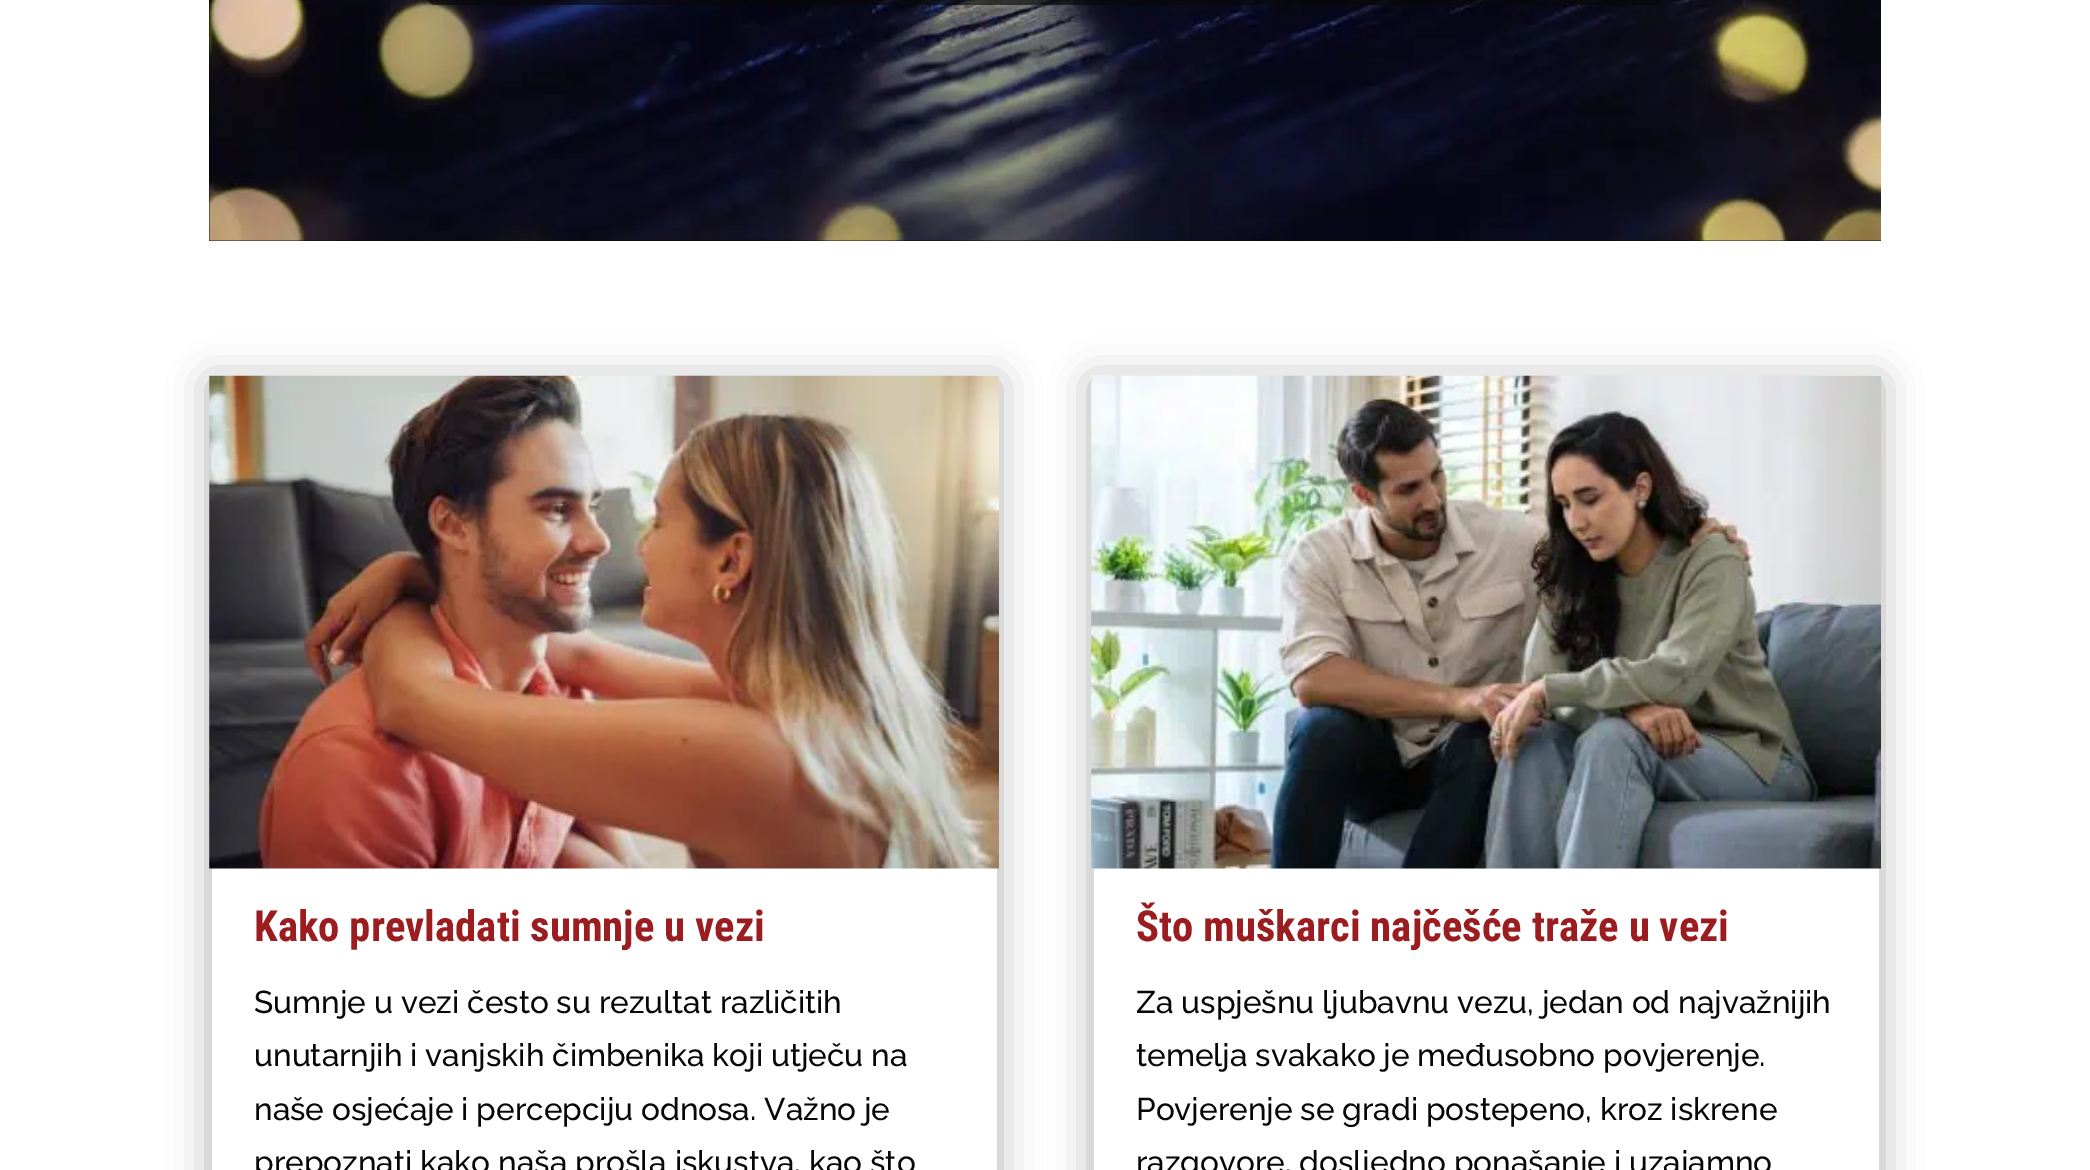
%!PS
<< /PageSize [2090 1170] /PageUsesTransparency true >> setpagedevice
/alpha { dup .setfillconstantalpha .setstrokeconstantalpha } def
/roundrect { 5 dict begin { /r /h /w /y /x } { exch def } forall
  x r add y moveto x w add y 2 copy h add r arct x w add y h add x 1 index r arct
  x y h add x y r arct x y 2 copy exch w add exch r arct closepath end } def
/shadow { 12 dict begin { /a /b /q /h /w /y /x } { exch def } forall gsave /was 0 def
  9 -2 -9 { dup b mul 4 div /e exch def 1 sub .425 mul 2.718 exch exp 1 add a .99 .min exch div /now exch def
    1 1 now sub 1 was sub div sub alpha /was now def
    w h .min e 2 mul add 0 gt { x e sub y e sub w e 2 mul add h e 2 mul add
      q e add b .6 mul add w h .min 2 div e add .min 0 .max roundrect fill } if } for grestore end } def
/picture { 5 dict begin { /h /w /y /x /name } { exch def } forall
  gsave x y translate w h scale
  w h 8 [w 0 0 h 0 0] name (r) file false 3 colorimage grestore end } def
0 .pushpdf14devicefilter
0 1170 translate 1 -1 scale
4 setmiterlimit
1 setgray
0 0 2090 1170 rectfill
0.031 0.027 0.031 setrgbcolor
209 0 1672 241 rectfill
(img1.rgb) 209 0 1672 241 picture
0.65 alpha
428 -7 1235 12 7 roundrect fill
gsave
newpath 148 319 moveto 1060 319 lineto 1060 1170 lineto 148 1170 lineto closepath 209 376 moveto 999 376 lineto 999 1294 lineto 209 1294 lineto closepath eoclip newpath
1 alpha
0 setgray
209 380 790 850 0 20 0.3 shadow
grestore
1 alpha
0.847 setgray
newpath 999 376 moveto 999 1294 lineto 997 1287 lineto 997 378 lineto closepath fill
newpath 209 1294 moveto 209 376 lineto 212 378 lineto 212 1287 lineto closepath fill
(img2.rgb) 209 375 790 494 picture
/RobotoCondensed-Bold [42.75 0 0 -42.75 0 0] selectfont
0.608 0.114 0.125 setrgbcolor
254 941 moveto (Kako prevladati sumnje u vezi) show
/Raleway-Medium [31.5 0 0 -31.5 0 0] selectfont
0.031 0.027 0.031 setrgbcolor
254 1013 moveto (Sumnje u vezi često su rezultat različitih) show
254 1066 moveto (unutarnjih i vanjskih čimbenika koji utječu na) show
254 1120 moveto (naše osjećaje i percepciju odnosa. Važno je) show
254 1173 moveto (prepoznati kako naša prošla iskustva, kao što) show
gsave
newpath 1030 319 moveto 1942 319 lineto 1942 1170 lineto 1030 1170 lineto closepath 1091 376 moveto 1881 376 lineto 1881 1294 lineto 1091 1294 lineto closepath eoclip newpath
0 setgray
1091 380 790 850 0 20 0.3 shadow
grestore
0.847 setgray
newpath 1881 376 moveto 1881 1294 lineto 1879 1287 lineto 1879 378 lineto closepath fill
newpath 1091 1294 moveto 1091 376 lineto 1094 378 lineto 1094 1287 lineto closepath fill
(img3.rgb) 1091 375 790 494 picture
/RobotoCondensed-Bold [42.75 0 0 -42.75 0 0] selectfont
0.608 0.114 0.125 setrgbcolor
1136 941 moveto (Što muškarci najčešće traže u vezi) show
/Raleway-Medium [31.5 0 0 -31.5 0 0] selectfont
0.031 0.027 0.031 setrgbcolor
1136 1013 moveto (Za uspješnu ljubavnu vezu, jedan od najvažnijih) show
1136 1066 moveto (temelja svakako je međusobno povjerenje.) show
1136 1120 moveto (Povjerenje se gradi postepeno, kroz iskrene) show
1136 1173 moveto (razgovore, dosljedno ponašanje i uzajamno) show
.poppdf14devicefilter showpage
